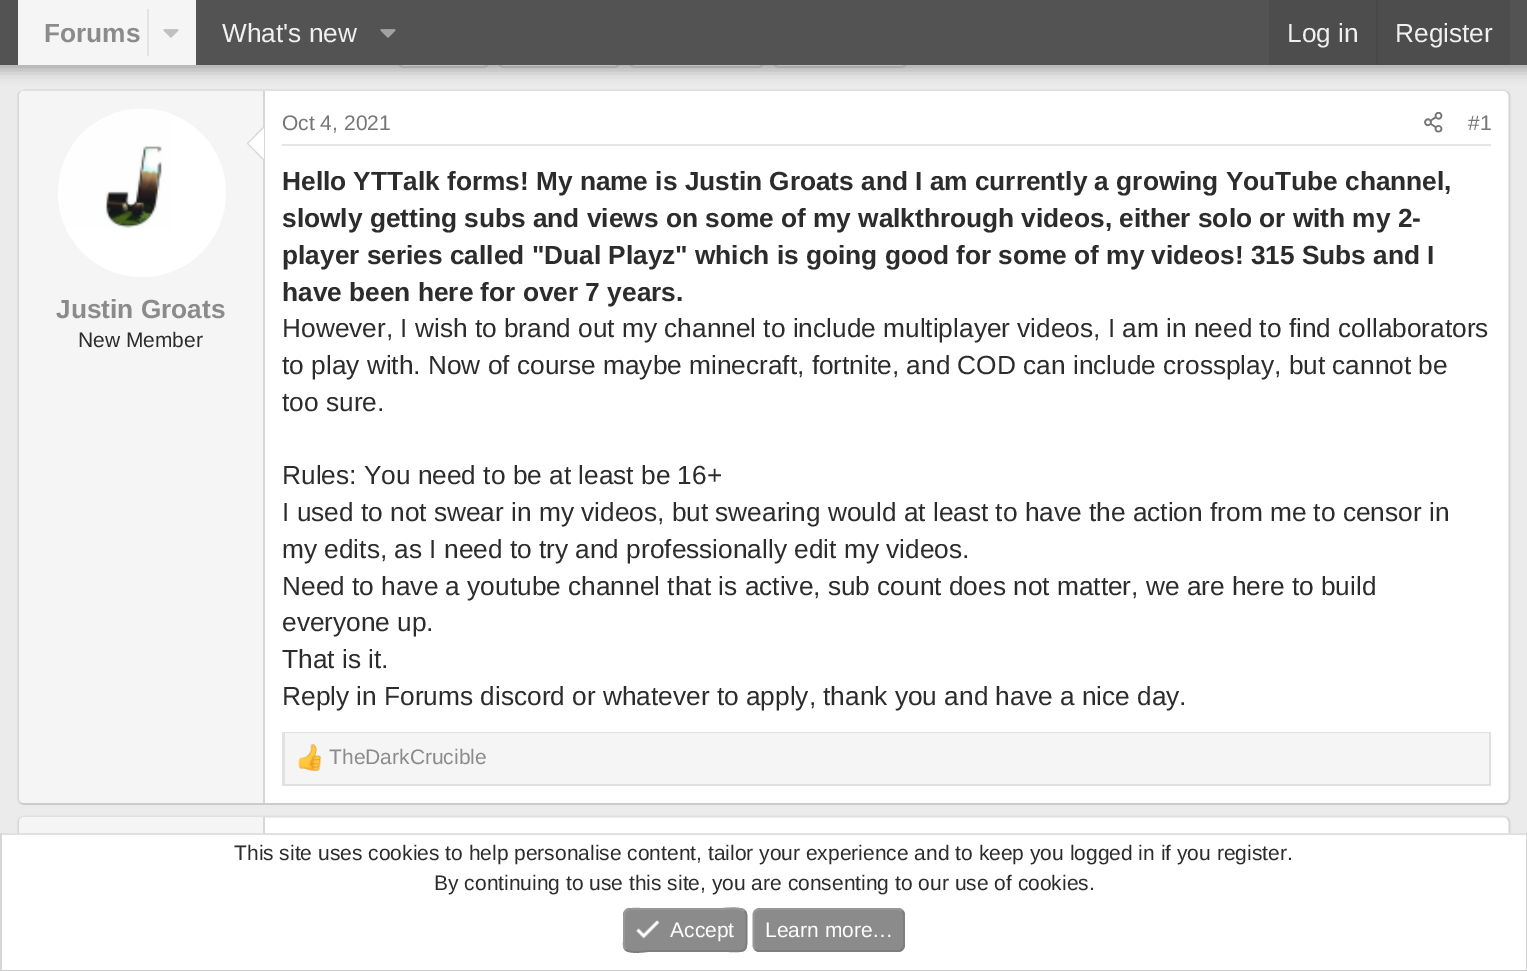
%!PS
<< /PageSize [1527 971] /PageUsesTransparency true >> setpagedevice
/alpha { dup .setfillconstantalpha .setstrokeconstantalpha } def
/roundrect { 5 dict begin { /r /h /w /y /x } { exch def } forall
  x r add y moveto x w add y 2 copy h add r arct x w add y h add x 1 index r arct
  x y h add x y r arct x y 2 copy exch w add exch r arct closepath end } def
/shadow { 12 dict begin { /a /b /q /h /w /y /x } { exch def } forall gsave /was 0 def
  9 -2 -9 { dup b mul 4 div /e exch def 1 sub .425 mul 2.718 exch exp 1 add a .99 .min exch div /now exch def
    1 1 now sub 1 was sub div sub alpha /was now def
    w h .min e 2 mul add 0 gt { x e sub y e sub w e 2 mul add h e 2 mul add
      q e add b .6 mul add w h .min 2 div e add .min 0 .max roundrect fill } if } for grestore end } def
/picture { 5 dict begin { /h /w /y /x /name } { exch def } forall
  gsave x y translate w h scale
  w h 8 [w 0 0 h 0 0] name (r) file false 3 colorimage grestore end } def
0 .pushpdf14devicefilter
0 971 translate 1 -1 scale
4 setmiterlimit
0.922 setgray
0 0 1527 971 rectfill
0.961 setgray
398 34 91 33 6 roundrect gsave fill grestore
0.839 setgray
2 setlinewidth
stroke
0.961 setgray
498 34 122 33 6 roundrect gsave fill grestore
0.839 setgray
stroke
0.961 setgray
629 34 135 33 6 roundrect gsave fill grestore
0.839 setgray
stroke
0.961 setgray
773 34 134 33 6 roundrect gsave fill grestore
0.839 setgray
stroke
1 setgray
18 89 1492 716 7 roundrect fill
0.878 setgray
1.8 setlinewidth
newpath 20 92 moveto 21.5 91 23 90 24.5 90 curveto 1503 90 lineto 1505 90 1506.5 91 1507.5 92 curveto stroke
0.839 setgray
newpath 1507.5 92 moveto 1508.5 93 1509.5 94.5 1509.5 96 curveto 1509.5 798 lineto 1509.5 799.5 1508.5 801 1507.5 802.5 curveto stroke
0.8 setgray
newpath 1507.5 802.5 moveto 1506.5 803.5 1505 804 1503 804 curveto 24.5 804 lineto 23 804 21.5 803.5 20 802.5 curveto stroke
0.839 setgray
newpath 20 802.5 moveto 19 801 18.5 799.5 18.5 798 curveto 18.5 96 lineto 18.5 94.5 19 93 20 92 curveto stroke
0.961 setgray
newpath 24 91 moveto 264 91 lineto 264 803 lineto 24 803 lineto 21 803 19 801 19 798 curveto 19 96 lineto 19 93 21 91 24 91 curveto closepath fill
0.839 setgray
263 91 2 712 rectfill
0 setgray
-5 -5 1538 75 0 7 0.3 shadow
0.325 setgray
0 0 1527 65 rectfill
0.961 setgray
18 0 178 65 rectfill
/LiberationSans-Bold [26.25 0 0 -26.25 0 0] selectfont
0.545 setgray
44 42 moveto (Forums) show
0.886 setgray
147 9 2 47 rectfill
(img1.rgb) 163 29 16 9 picture
/LiberationSans-Regular [26.25 0 0 -26.25 0 0] selectfont
0.941 setgray
222 42 moveto (What's new) show
(img2.rgb) 380 29 16 9 picture
0.302 setgray
1269 0 241 65 rectfill
0.941 setgray
1287 42 moveto (Log in) show
0.282 setgray
1376 0 2 65 rectfill
0.941 setgray
1395 42 moveto (Register) show
1 setgray
newpath 142 193 84 0 360 arc closepath fill
(img3.rgb) 61 108 112 121 picture
0.839 setgray
newpath 264 126 moveto 264 161 lineto 247 143.5 lineto closepath fill
1 setgray
newpath 264 128 moveto 264 159 lineto 248.5 143.5 lineto closepath fill
/LiberationSans-Bold [26.25 0 0 -26.25 0 0] selectfont
0.545 setgray
56 318 moveto (Justin Groats) show
/LiberationSans-Regular [21 0 0 -21 0 0] selectfont
0.173 setgray
78 347 moveto (New Member) show
0.898 setgray
282 144 1209 2 rectfill
0.463 setgray
282 130 moveto (Oct 4, 2021) show
(img4.rgb) 1424 112 19 21 picture
1468 130 moveto (#1) show
/LiberationSans-Bold [26.25 0 0 -26.25 0 0] selectfont
0.173 setgray
282 190 moveto (Hello YTTalk forms! My name is Justin Groats and I am currently a growing YouTube channel,) show
282 227 moveto (slowly getting subs and views on some of my walkthrough videos, either solo or with my 2-) show
282 264 moveto (player series called "Dual Playz" which is going good for some of my videos! 315 Subs and I) show
282 301 moveto (have been here for over 7 years.) show
/LiberationSans-Regular [26.25 0 0 -26.25 0 0] selectfont
282 337 moveto (However, I wish to brand out my channel to include multiplayer videos, I am in need to find collaborators) show
282 374 moveto (to play with. Now of course maybe minecraft, fortnite, and COD can include crossplay, but cannot be) show
282 411 moveto (too sure.) show
282 484 moveto (Rules: You need to be at least be 16+) show
282 521 moveto (I used to not swear in my videos, but swearing would at least to have the action from me to censor in) show
282 558 moveto (my edits, as I need to try and professionally edit my videos.) show
282 595 moveto (Need to have a youtube channel that is active, sub count does not matter, we are here to build) show
282 631 moveto (everyone up.) show
282 668 moveto (That is it.) show
282 705 moveto (Reply in Forums discord or whatever to apply, thank you and have a nice day.) show
0.961 setgray
285 733 1204 51 rectfill
0.878 setgray
newpath 282 732 moveto 1491 732 lineto 1489 733 lineto 285 733 lineto closepath fill
1489 732 2 54 rectfill
newpath 1491 786 moveto 282 786 lineto 285 784 lineto 1489 784 lineto closepath fill
0.886 setgray
newpath 282 786 moveto 282 732 lineto 285 733 lineto 285 784 lineto closepath fill
(img5.rgb) 298 744 24 27 picture
/LiberationSans-Regular [21 0 0 -21 0 0] selectfont
0.545 setgray
329 764 moveto (TheDarkCrucible) show
1 setgray
18 816 1492 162 7 roundrect fill
0.878 setgray
newpath 20 818 moveto 21.5 817 23 816.5 24.5 816.5 curveto 1503 816.5 lineto 1505 816.5 1506.5 817 1507.5 818 curveto stroke
0.839 setgray
newpath 1507.5 818 moveto 1508.5 819.5 1509.5 821 1509.5 822.5 curveto 1509.5 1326.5 lineto 1509.5 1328 1508.5 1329.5 1507.5 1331 curveto stroke
newpath 20 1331 moveto 19 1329.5 18.5 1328 18.5 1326.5 curveto 18.5 822.5 lineto 18.5 821 19 819.5 20 818 curveto stroke
0.961 setgray
newpath 24 817 moveto 264 817 lineto 264 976 lineto 24 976 lineto 21 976 19 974 19 971 curveto 19 822 lineto 19 819 21 817 24 817 curveto closepath fill
0.839 setgray
263 817 2 16 rectfill
1 setgray
2 835 1524 135 rectfill
0.878 setgray
0 833 1527 2 rectfill
0.839 setgray
1526 833 1 138 rectfill
0.8 setgray
0 970 1527 1 rectfill
0.839 setgray
0 833 2 138 rectfill
0.173 setgray
234 860 moveto (This site uses cookies to help personalise content, tailor your experience and to keep you logged in if you register.) show
434 890 moveto (By continuing to use this site, you are consenting to our use of cookies.) show
0.545 setgray
623 908 124 44 7 roundrect fill
0.494 setgray
newpath 744.5 911 moveto 747 913.5 746.5 917 746.5 920 curveto 746.5 930 lineto 746.5 955 748.5 951 722 951 curveto 648.5 951 lineto 646.5 951 630 954 625.5 949.5 curveto stroke
0.596 setgray
newpath 625.5 949.5 moveto 623 947 624 943 624 940 curveto 624 930 lineto 624 905.5 622 909 648.5 909 curveto 722 909 lineto 723.5 909 740 906.5 744.5 911 curveto stroke
(img6.rgb) 636 920 24 19 picture
1 setgray
670 937 moveto (Accept) show
0.545 setgray
753 908 152 44 7 roundrect fill
0.494 setgray
newpath 902 911 moveto 903 912 904 913.5 904 915 curveto 904 945 lineto 904 946.5 903 948 902 949.5 curveto 901 950.5 899.5 951 898 951 curveto 759.5 951 lineto 758 951 756.5 950.5 755 949.5 curveto stroke
0.596 setgray
newpath 755 949.5 moveto 754 948 753.5 946.5 753.5 945 curveto 753.5 915 lineto 753.5 913.5 754 912 755 911 curveto 756.5 910 758 909 759.5 909 curveto 898 909 lineto 899.5 909 901 910 902 911 curveto stroke
1 setgray
765 937 moveto (Learn more…) show
.poppdf14devicefilter showpage
